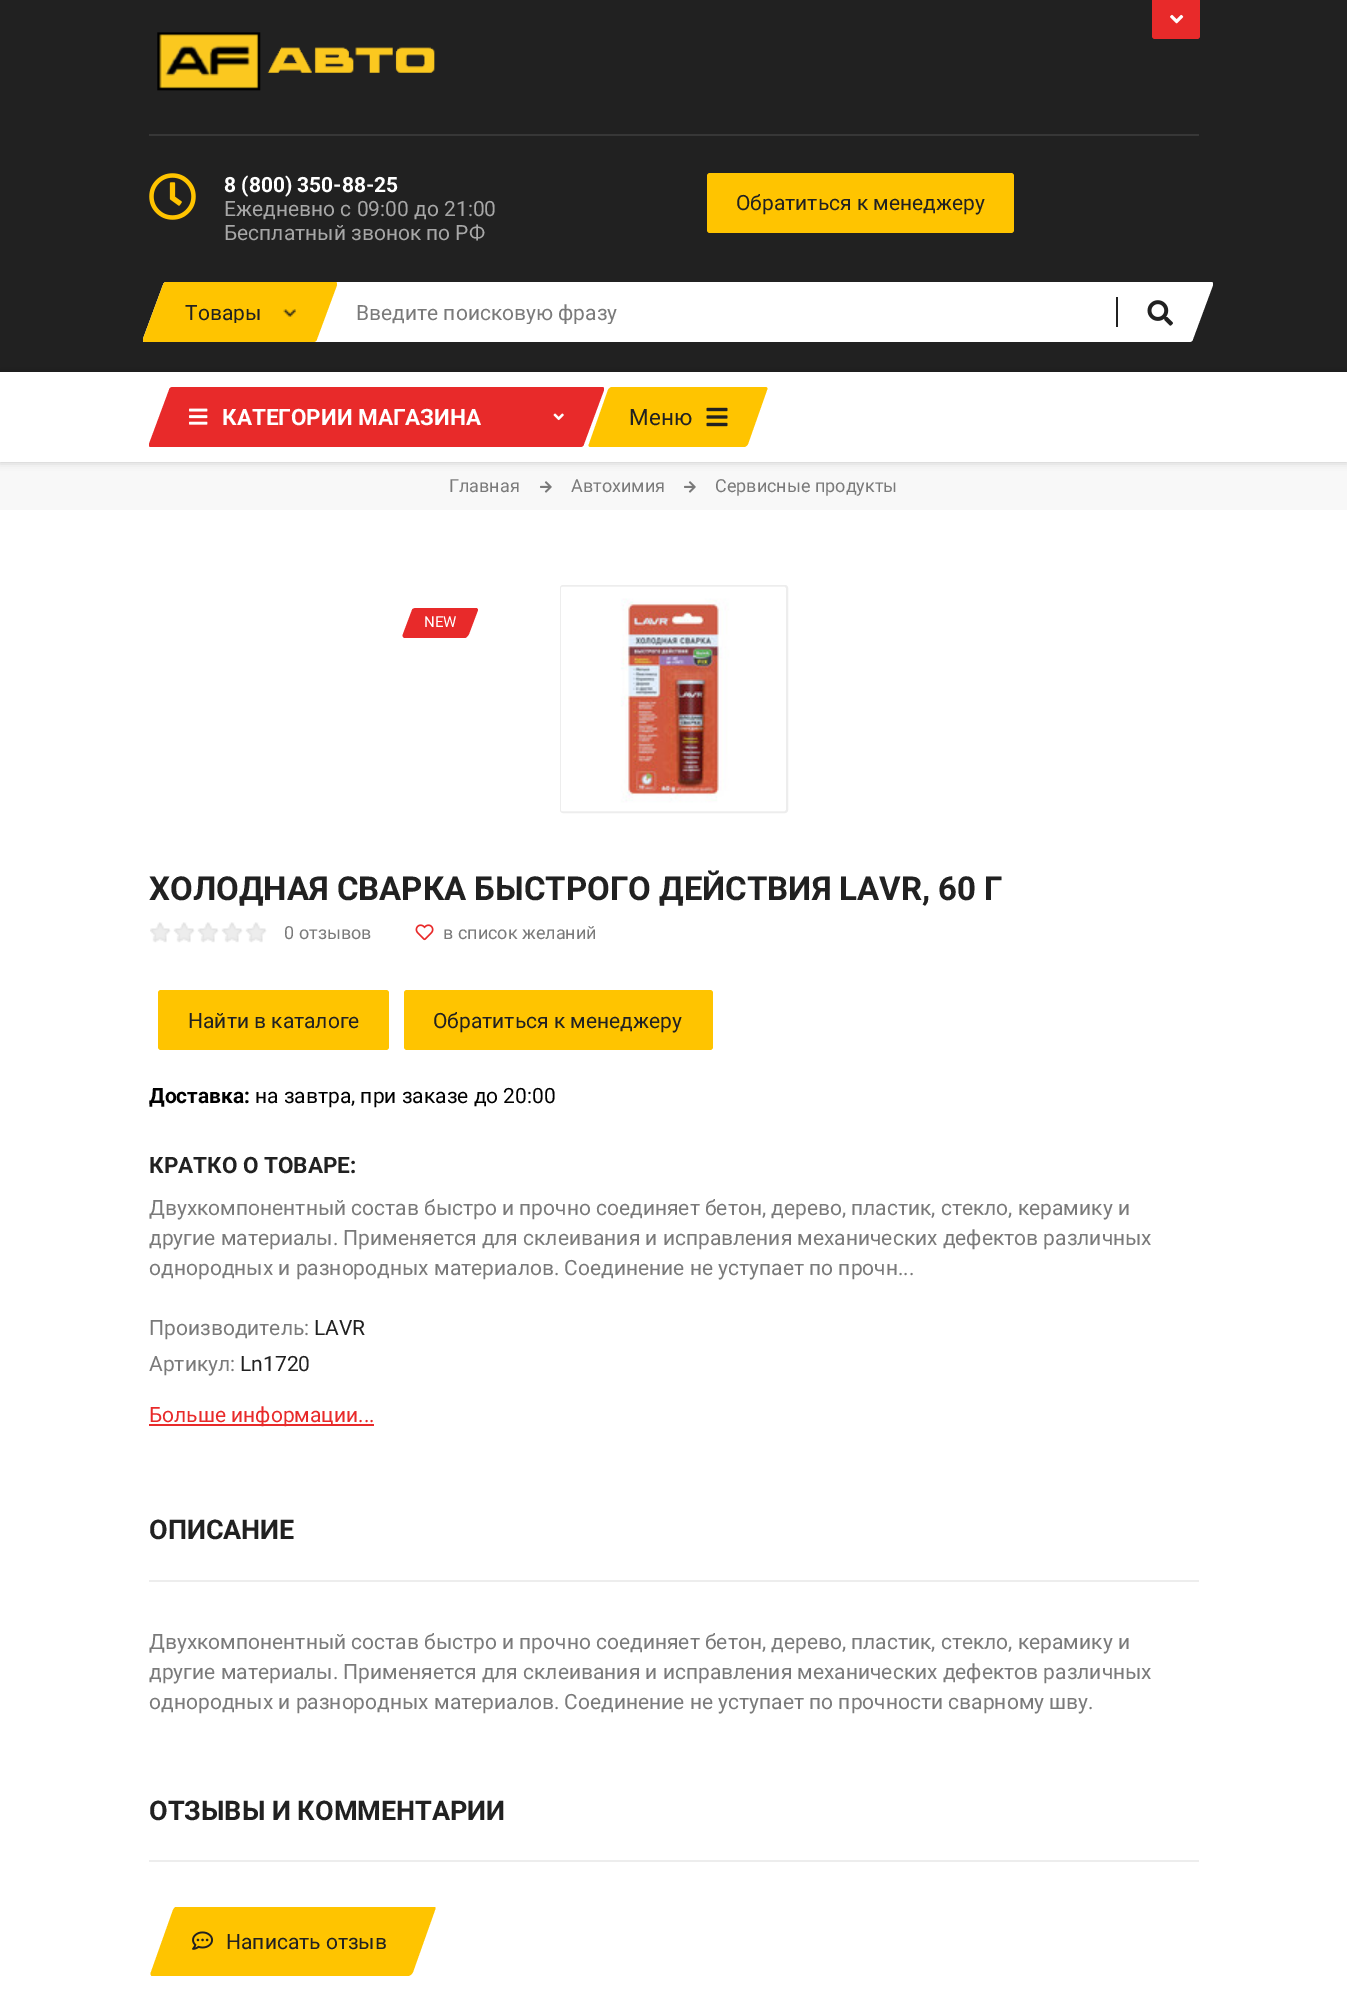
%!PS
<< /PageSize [1347 1994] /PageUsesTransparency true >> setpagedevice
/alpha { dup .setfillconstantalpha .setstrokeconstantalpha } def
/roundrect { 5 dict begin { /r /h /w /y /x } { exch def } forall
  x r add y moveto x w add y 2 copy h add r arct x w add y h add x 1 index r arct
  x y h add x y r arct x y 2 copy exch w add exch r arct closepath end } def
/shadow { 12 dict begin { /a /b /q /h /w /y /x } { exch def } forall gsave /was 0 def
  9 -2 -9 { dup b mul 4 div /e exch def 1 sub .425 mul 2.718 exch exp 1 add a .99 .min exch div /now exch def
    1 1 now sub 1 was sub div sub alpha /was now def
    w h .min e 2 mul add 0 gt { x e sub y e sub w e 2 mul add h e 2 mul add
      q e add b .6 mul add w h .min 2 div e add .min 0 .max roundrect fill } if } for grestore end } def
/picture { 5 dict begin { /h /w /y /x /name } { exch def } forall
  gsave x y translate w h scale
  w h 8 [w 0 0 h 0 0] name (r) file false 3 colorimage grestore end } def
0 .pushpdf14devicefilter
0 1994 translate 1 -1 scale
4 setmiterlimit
1 setgray
0 0 1347 1994 rectfill
0.129 setgray
0 0 1347 372 rectfill
0.91 0.165 0.165 setrgbcolor
newpath 1152 0 moveto 1200 0 lineto 1200 36 lineto 1200 37.5 1198.5 39 1197 39 curveto 1155 39 lineto 1153.5 39 1152 37.5 1152 36 curveto closepath fill
(img1.rgb) 1170 14 14 10 picture
0.216 setgray
149 134 1050 2 rectfill
(img2.rgb) 157 32 278 59 picture
(img3.rgb) 149 173 47 47 picture
/Roboto-Bold [21 0 0 -21 0 0] selectfont
1 setgray
224 192 moveto (8 \(800\) 350-88-25) show
/Roboto-Regular [21 0 0 -21 0 0] selectfont
0.655 setgray
224 216 moveto (Ежедневно с 09:00 до 21:00) show
224 240 moveto (Бесплатный звонок по РФ) show
1 0.769 0 setrgbcolor
707 173 307 60 3 roundrect fill
0.129 setgray
736 210 moveto (Обратиться к менеджеру) show
1 setgray
newpath 167 282 moveto 1211 282 lineto 1213 282 1213 283 1213 285 curveto 1193 339 lineto 1193 341 1191 342 1189 342 curveto 145 342 lineto 143 342 143 341 143 339 curveto 163 285 lineto 163 283 165 282 167 282 curveto closepath fill
1 0.769 0 setrgbcolor
newpath 167 282 moveto 335 282 lineto 337 282 337 283 337 285 curveto 317 339 lineto 317 341 315 342 313 342 curveto 145 342 lineto 143 342 143 341 143 339 curveto 163 285 lineto 163 283 165 282 167 282 curveto closepath fill
(img4.rgb) 283 309 13 8 picture
gsave
183 302 77 21 rectclip
0.129 setgray
185 320 moveto (Товары) show
grestore
gsave
356 300 735 24 rectclip
0.478 setgray
356 320 moveto (Введите поисковую фразу) show
grestore
0.129 setgray
1116 297 2 30 rectfill
(img5.rgb) 1147 300 26 26 picture
0.973 setgray
0 462 1347 48 rectfill
gsave
newpath 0 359 moveto 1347 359 lineto 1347 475 lineto 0 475 lineto closepath 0 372 moveto 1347 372 lineto 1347 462 lineto 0 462 lineto closepath eoclip newpath
0 setgray
0 372 1347 90 0 4 0.2 shadow
grestore
0.91 0.165 0.165 setrgbcolor
newpath 173 387 moveto 602 387 lineto 604 387 604 388 604 390 curveto 584 444 lineto 584 446 582 447 580 447 curveto 151 447 lineto 149 447 149 446 149 444 curveto 169 390 lineto 169 388 171 387 173 387 curveto closepath fill
(img6.rgb) 189 408 19 17 picture
/Roboto-Bold [22.5 0 0 -22.5 0 0] selectfont
1 setgray
222 425 moveto (КАТЕГОРИИ МАГАЗИНА) show
(img7.rgb) 553 413 11 8 picture
1 0.769 0 setrgbcolor
newpath 612 387 moveto 765 387 lineto 767 387 768 388 767 390 curveto 748 444 lineto 747 446 745 447 744 447 curveto 591 447 lineto 589 447 588 446 589 444 curveto 608 390 lineto 609 388 611 387 612 387 curveto closepath fill
/Roboto-Regular [22.5 0 0 -22.5 0 0] selectfont
0.129 setgray
629 425 moveto (Меню) show
(img8.rgb) 706 407 22 20 picture
/Roboto-Regular [18 0 0 -18 0 0] selectfont
0.478 setgray
449 492 moveto (Главная) show
(img9.rgb) 540 481 12 12 picture
571 492 moveto (Автохимия) show
(img9.rgb) 684 481 12 12 picture
715 492 moveto (Сервисные продукты) show
0.929 setgray
2 setlinewidth
561 586 226 226 2 roundrect stroke
0.91 0.165 0.165 setrgbcolor
newpath 416 608 moveto 476 608 lineto 477 608 478 609 478 610 curveto 469 634 lineto 468 636 466 638 465 638 curveto 405 638 lineto 403 638 402 636 403 634 curveto 412 610 lineto 412 609 414 608 416 608 curveto closepath fill
/Roboto-Regular [15 0 0 -15 0 0] selectfont
1 setgray
424 627 moveto (NEW) show
(img10.rgb) 561 586 224 226 picture
/Roboto-Bold [33 0 0 -33 0 0] selectfont
0.129 setgray
149 900 moveto (ХОЛОДНАЯ СВАРКА БЫСТРОГО ДЕЙСТВИЯ LAVR, 60 Г) show
(img11.rgb) 150 922 117 21 picture
/Roboto-Regular [18 0 0 -18 0 0] selectfont
0.478 setgray
284 939 moveto (0 отзывов) show
(img12.rgb) 415 924 19 17 picture
443 939 moveto (в список желаний) show
1 0.769 0 setrgbcolor
158 990 231 60 3 roundrect fill
/Roboto-Regular [21 0 0 -21 0 0] selectfont
0.129 setgray
188 1028 moveto (Найти в каталоге) show
1 0.769 0 setrgbcolor
404 990 309 60 3 roundrect fill
0.129 setgray
433 1028 moveto (Обратиться к менеджеру) show
gsave
149 585 1050 851 rectclip
/Roboto-Bold [21 0 0 -21 0 0] selectfont
0 setgray
149 1103 moveto (Доставка:) show
grestore
0 setgray
255 1103 moveto (на завтра, при заказе до 20:00) show
/Roboto-Bold [22.5 0 0 -22.5 0 0] selectfont
0.129 setgray
149 1173 moveto (КРАТКО О ТОВАРЕ:) show
/Roboto-Regular [21 0 0 -21 0 0] selectfont
0.478 setgray
149 1215 moveto (Двухкомпонентный состав быстро и прочно соединяет бетон, дерево, пластик, стекло, керамику и) show
149 1245 moveto (другие материалы. Применяется для склеивания и исправления механических дефектов различных) show
149 1275 moveto (однородных и разнородных материалов. Соединение не уступает по прочн...) show
149 1335 moveto (Производитель:) show
0.129 setgray
314 1335 moveto (LAVR) show
0.478 setgray
149 1371 moveto (Артикул:) show
0.129 setgray
240 1371 moveto (Ln1720) show
0.91 0.165 0.165 setrgbcolor
149 1424 225 2 rectfill
149 1422 moveto (Больше информации...) show
0.929 setgray
149 1580 1050 2 rectfill
/Roboto-Bold [27 0 0 -27 0 0] selectfont
0.129 setgray
149 1539 moveto (ОПИСАНИЕ) show
/Roboto-Regular [21 0 0 -21 0 0] selectfont
0.478 setgray
149 1649 moveto (Двухкомпонентный состав быстро и прочно соединяет бетон, дерево, пластик, стекло, керамику и) show
149 1679 moveto (другие материалы. Применяется для склеивания и исправления механических дефектов различных) show
149 1709 moveto (однородных и разнородных материалов. Соединение не уступает по прочности сварному шву.) show
0.929 setgray
149 1860 1050 2 rectfill
/Roboto-Bold [27 0 0 -27 0 0] selectfont
0.129 setgray
149 1820 moveto (ОТЗЫВЫ И КОММЕНТАРИИ) show
gsave
149 1907 1050 69 rectclip
1 0.769 0 setrgbcolor
newpath 178 1906 moveto 434 1906 lineto 435 1906 436 1908 435 1910 curveto 413 1972 lineto 412 1974 410 1976 408 1976 curveto 152 1976 lineto 151 1976 150 1974 151 1972 curveto 173 1910 lineto 174 1908 176 1906 178 1906 curveto closepath fill
grestore
(img13.rgb) 192 1931 21 19 picture
/Roboto-Regular [21 0 0 -21 0 0] selectfont
226 1949 moveto (Написать отзыв) show
.poppdf14devicefilter showpage
